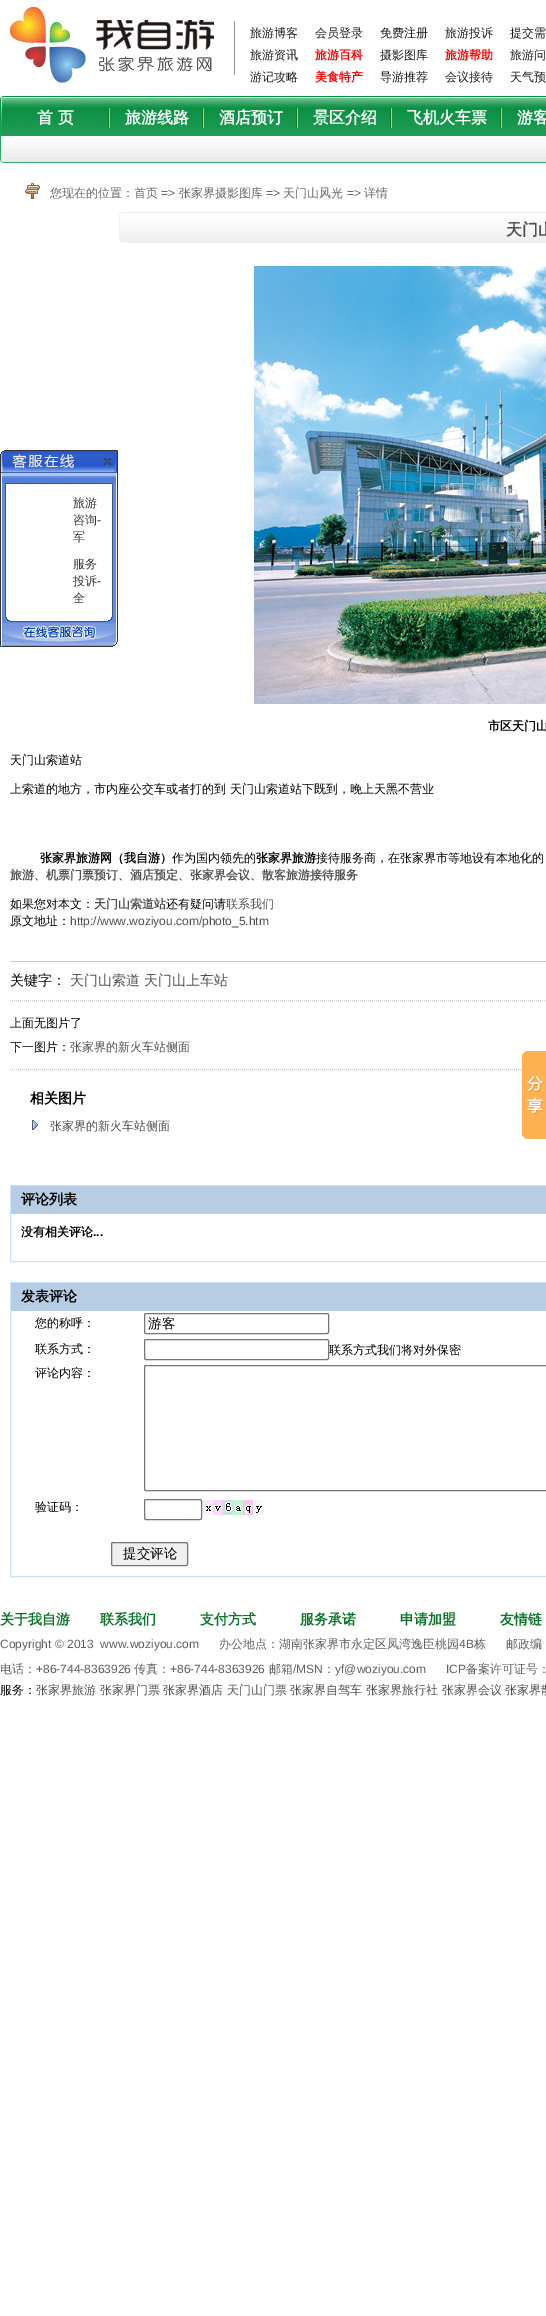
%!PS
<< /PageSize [546 2316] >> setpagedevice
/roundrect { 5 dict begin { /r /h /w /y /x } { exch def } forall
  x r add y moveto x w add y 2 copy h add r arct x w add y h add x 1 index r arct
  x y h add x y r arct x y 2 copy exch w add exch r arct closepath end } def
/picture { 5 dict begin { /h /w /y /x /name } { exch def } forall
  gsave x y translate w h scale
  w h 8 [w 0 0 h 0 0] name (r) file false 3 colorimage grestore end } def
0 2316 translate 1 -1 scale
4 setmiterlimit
1 setgray
0 0 546 2316 rectfill
(img1.rgb) 10 7 225 76 picture
/WenQuanYiZenHei-Medium [12 0 0 -12 0 0] selectfont
0.122 0.102 0.09 setrgbcolor
250 37 moveto (旅游博客) show
315 37 moveto (会员登录) show
380 37 moveto (免费注册) show
445 37 moveto (旅游投诉) show
510 37 moveto (提交需) show
250 59 moveto (旅游资讯) show
/WenQuanYiZenHei-Bold [12 0 0 -12 0 0] selectfont
1 0 0 setrgbcolor
315 59 moveto (旅游百科) show
/WenQuanYiZenHei-Medium [12 0 0 -12 0 0] selectfont
0.122 0.102 0.09 setrgbcolor
380 59 moveto (摄影图库) show
/WenQuanYiZenHei-Bold [12 0 0 -12 0 0] selectfont
1 0 0 setrgbcolor
445 59 moveto (旅游帮助) show
/WenQuanYiZenHei-Medium [12 0 0 -12 0 0] selectfont
0.122 0.102 0.09 setrgbcolor
510 59 moveto (旅游问) show
250 81 moveto (游记攻略) show
/WenQuanYiZenHei-Bold [12 0 0 -12 0 0] selectfont
1 0 0 setrgbcolor
315 81 moveto (美食特产) show
/WenQuanYiZenHei-Medium [12 0 0 -12 0 0] selectfont
0.122 0.102 0.09 setrgbcolor
380 81 moveto (导游推荐) show
445 81 moveto (会议接待) show
510 81 moveto (天气预) show
(img2.rgb) 12 96 534 67 picture
(img3.rgb) 0 96 12 67 picture
(img4.rgb) 108 108 2 20 picture
/WenQuanYiZenHei-Bold [16 0 0 -16 0 0] selectfont
1 setgray
37 123 moveto (首 页) show
(img4.rgb) 202 108 2 20 picture
125 123 moveto (旅游线路) show
(img4.rgb) 296 108 2 20 picture
219 123 moveto (酒店预订) show
(img4.rgb) 390 108 2 20 picture
313 123 moveto (景区介绍) show
(img4.rgb) 500 108 2 20 picture
407 123 moveto (飞机火车票) show
517 123 moveto (游客) show
(img5.rgb) 25 183 15 16 picture
/WenQuanYiZenHei-Medium [12 0 0 -12 0 0] selectfont
0.404 setgray
50 197 moveto (您现在的位置：首页) show
/LiberationSans-Regular [12 0 0 -12 0 0] selectfont
161 197 moveto (=>) show
/WenQuanYiZenHei-Medium [12 0 0 -12 0 0] selectfont
179 197 moveto (张家界摄影图库) show
/LiberationSans-Regular [12 0 0 -12 0 0] selectfont
266 197 moveto (=>) show
/WenQuanYiZenHei-Medium [12 0 0 -12 0 0] selectfont
283 197 moveto (天门山风光) show
/LiberationSans-Regular [12 0 0 -12 0 0] selectfont
347 197 moveto (=>) show
/WenQuanYiZenHei-Medium [12 0 0 -12 0 0] selectfont
364 197 moveto (详情) show
(img6.rgb) 119 212 427 31 picture
/WenQuanYiZenHei-Bold [16 0 0 -16 0 0] selectfont
0.314 setgray
506 235 moveto (天门山) show
(img7.rgb) 254 266 292 438 picture
/WenQuanYiZenHei-Bold [12 0 0 -12 0 0] selectfont
0 setgray
488 730 moveto (市区天门山) show
/WenQuanYiZenHei-Medium [12 0 0 -12 0 0] selectfont
10 764 moveto (天门山索道站) show
10 793 moveto (上索道的地方，市内座公交车或者打的到 天门山索道站下既到，晚上天黑不营业) show
/WenQuanYiZenHei-Bold [12 0 0 -12 0 0] selectfont
40 862 moveto (张家界旅游网（我自游）) show
/WenQuanYiZenHei-Medium [12 0 0 -12 0 0] selectfont
172 862 moveto (作为国内领先的) show
/WenQuanYiZenHei-Bold [12 0 0 -12 0 0] selectfont
256 862 moveto (张家界旅游) show
/WenQuanYiZenHei-Medium [12 0 0 -12 0 0] selectfont
316 862 moveto (接待服务商，在张家界市等地设有本地化的) show
/WenQuanYiZenHei-Bold [12 0 0 -12 0 0] selectfont
0.314 setgray
10 879 moveto (旅游) show
/WenQuanYiZenHei-Medium [12 0 0 -12 0 0] selectfont
0 setgray
34 879 moveto (、) show
/WenQuanYiZenHei-Bold [12 0 0 -12 0 0] selectfont
0.314 setgray
46 879 moveto (机票门票预订) show
/WenQuanYiZenHei-Medium [12 0 0 -12 0 0] selectfont
0 setgray
118 879 moveto (、) show
/WenQuanYiZenHei-Bold [12 0 0 -12 0 0] selectfont
0.314 setgray
130 879 moveto (酒店预定) show
/WenQuanYiZenHei-Medium [12 0 0 -12 0 0] selectfont
0 setgray
178 879 moveto (、) show
/WenQuanYiZenHei-Bold [12 0 0 -12 0 0] selectfont
0.314 setgray
190 879 moveto (张家界会议) show
/WenQuanYiZenHei-Medium [12 0 0 -12 0 0] selectfont
0 setgray
250 879 moveto (、) show
/WenQuanYiZenHei-Bold [12 0 0 -12 0 0] selectfont
0.314 setgray
262 879 moveto (散客旅游接待服务) show
/WenQuanYiZenHei-Medium [12 0 0 -12 0 0] selectfont
0 setgray
10 908 moveto (如果您对本文：) show
/WenQuanYiZenHei-Bold [12 0 0 -12 0 0] selectfont
0.314 setgray
94 908 moveto (天门山索道站) show
/WenQuanYiZenHei-Medium [12 0 0 -12 0 0] selectfont
0 setgray
166 908 moveto (还有疑问请) show
0.314 setgray
226 908 moveto (联系我们) show
0 setgray
10 925 moveto (原文地址：) show
/LiberationSans-Regular [12 0 0 -12 0 0] selectfont
0.314 setgray
70 925 moveto (http://www.woziyou.com/photo_5.htm) show
0.8 setgray
10 961 536 1 rectfill
[1 1] 0 setdash
newpath 10 1000.5 moveto 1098 1000.5 lineto stroke
/WenQuanYiZenHei-Medium [14 0 0 -14 0 0] selectfont
0 setgray
10 985 moveto (关键字：) show
0.314 setgray
70 985 moveto (天门山索道) show
144 985 moveto (天门山上车站) show
/WenQuanYiZenHei-Medium [12 0 0 -12 0 0] selectfont
0 setgray
10 1027 moveto (上面无图片了) show
10 1051 moveto (下一图片：) show
0.314 setgray
70 1051 moveto (张家界的新火车站侧面) show
0.8 setgray
newpath 10 1069.5 moveto 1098 1069.5 lineto stroke
/WenQuanYiZenHei-Bold [14 0 0 -14 0 0] selectfont
0 setgray
30 1103 moveto (相关图片) show
(img8.rgb) 32 1120 6 10 picture
/WenQuanYiZenHei-Medium [12 0 0 -12 0 0] selectfont
0.314 setgray
50 1130 moveto (张家界的新火车站侧面) show
0.784 0.886 1 setrgbcolor
[] 0 setdash
10.5 1185.5 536 76 rectstroke
0.718 0.804 0.89 setrgbcolor
11 1186 535 28 rectfill
/WenQuanYiZenHei-Bold [14 0 0 -14 0 0] selectfont
0 setgray
21 1204 moveto (评论列表) show
/WenQuanYiZenHei-Bold [12 0 0 -12 0 0] selectfont
21 1236 moveto (没有相关评论) show
/LiberationSans-Bold [12 0 0 -12 0 0] selectfont
93 1236 moveto (...) show
0.784 0.886 1 setrgbcolor
10.5 1282.5 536 294 rectstroke
0.718 0.804 0.89 setrgbcolor
11 1283 535 28 rectfill
/WenQuanYiZenHei-Bold [14 0 0 -14 0 0] selectfont
0 setgray
21 1301 moveto (发表评论) show
/WenQuanYiZenHei-Medium [12 0 0 -12 0 0] selectfont
35 1327 moveto (您的称呼：) show
0.463 setgray
144.5 1313.5 184 20 1.5 roundrect stroke
/WenQuanYiZenHei-Medium [13.5 0 0 -13.5 0 0] selectfont
0 setgray
148 1328 moveto (游客) show
/WenQuanYiZenHei-Medium [12 0 0 -12 0 0] selectfont
35 1353 moveto (联系方式：) show
0.463 setgray
144.5 1339.5 184 20 1.5 roundrect stroke
0 setgray
329 1354 moveto (联系方式我们将对外保密) show
35 1377 moveto (评论内容：) show
0.463 setgray
144.5 1365.5 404 125 1.5 roundrect stroke
0 setgray
35 1511 moveto (验证码：) show
0.463 setgray
144.5 1499.5 57 20 1.5 roundrect stroke
(img9.rgb) 203 1500 60 15 picture
0.937 setgray
111.5 1542.5 76 23 1.5 roundrect gsave fill grestore
0.463 setgray
stroke
/WenQuanYiZenHei-Medium [13.5 0 0 -13.5 0 0] selectfont
0 setgray
123 1558 moveto (提交评论) show
(img10.rgb) 0 450 118 40 picture
(img11.rgb) 0 490 118 122 picture
/WenQuanYiZenHei-Medium [12 0 0 -12 0 0] selectfont
0.2 setgray
73 507 moveto (旅游) show
73 524 moveto (咨询) show
/LiberationSans-Regular [12 0 0 -12 0 0] selectfont
97 524 moveto (-) show
/WenQuanYiZenHei-Medium [12 0 0 -12 0 0] selectfont
73 541 moveto (军) show
73 568 moveto (服务) show
73 585 moveto (投诉) show
/LiberationSans-Regular [12 0 0 -12 0 0] selectfont
97 585 moveto (-) show
/WenQuanYiZenHei-Medium [12 0 0 -12 0 0] selectfont
73 602 moveto (全) show
(img12.rgb) 0 612 118 35 picture
(img13.rgb) 522 1051 24 88 picture
/WenQuanYiZenHei-Bold [14 0 0 -14 0 0] selectfont
0.035 0.459 0.161 setrgbcolor
0 1624 moveto (关于我自游) show
100 1624 moveto (联系我们) show
200 1624 moveto (支付方式) show
300 1624 moveto (服务承诺) show
400 1624 moveto (申请加盟) show
500 1624 moveto (友情链) show
/LiberationSans-Regular [12 0 0 -12 0 0] selectfont
0.373 setgray
0 1648 moveto (Copyright © 2013  www.woziyou.com) show
/WenQuanYiZenHei-Medium [12 0 0 -12 0 0] selectfont
219 1648 moveto (办公地点：湖南张家界市永定区凤湾逸臣桃园) show
/LiberationSans-Regular [12 0 0 -12 0 0] selectfont
459 1648 moveto (4B) show
/WenQuanYiZenHei-Medium [12 0 0 -12 0 0] selectfont
474 1648 moveto (栋) show
506 1648 moveto (邮政编) show
0 1673 moveto (电话：) show
/LiberationSans-Regular [12 0 0 -12 0 0] selectfont
36 1673 moveto (+86-744-8363926) show
/WenQuanYiZenHei-Medium [12 0 0 -12 0 0] selectfont
134 1673 moveto (传真：) show
/LiberationSans-Regular [12 0 0 -12 0 0] selectfont
170 1673 moveto (+86-744-8363926) show
/WenQuanYiZenHei-Medium [12 0 0 -12 0 0] selectfont
269 1673 moveto (邮箱) show
/LiberationSans-Regular [12 0 0 -12 0 0] selectfont
293 1673 moveto (/MSN) show
/WenQuanYiZenHei-Medium [12 0 0 -12 0 0] selectfont
323 1673 moveto (：) show
/LiberationSans-Regular [12 0 0 -12 0 0] selectfont
335 1673 moveto (yf@woziyou.com) show
446 1673 moveto (ICP) show
/WenQuanYiZenHei-Medium [12 0 0 -12 0 0] selectfont
466 1673 moveto (备案许可证号：) show
0 setgray
0 1694 moveto (服务：) show
0.314 setgray
36 1694 moveto (张家界旅游 张家界门票 张家界酒店 天门山门票 张家界自驾车 张家界旅行社 张家界会议 张家界散) show
showpage
